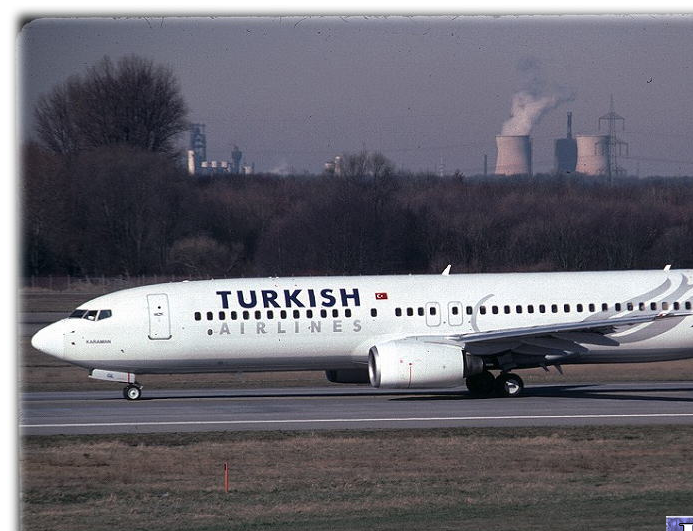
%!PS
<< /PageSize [693 531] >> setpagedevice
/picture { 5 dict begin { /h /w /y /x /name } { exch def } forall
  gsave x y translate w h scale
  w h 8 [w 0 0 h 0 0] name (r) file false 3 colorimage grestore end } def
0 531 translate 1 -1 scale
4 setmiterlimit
1 setgray
0 0 693 531 rectfill
(img1.rgb) 7 5 686 526 picture
(img2.rgb) 666 516 27 15 picture
showpage
